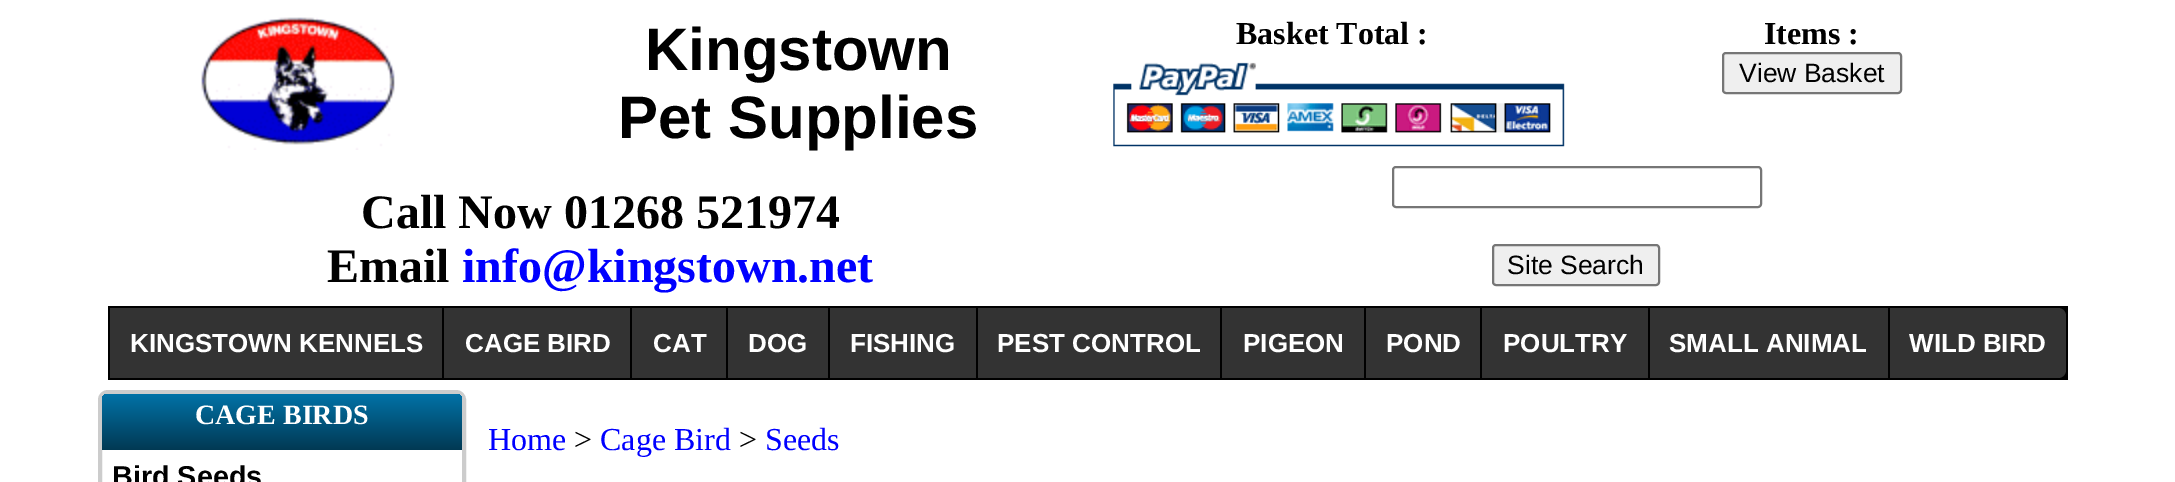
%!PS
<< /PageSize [2175 482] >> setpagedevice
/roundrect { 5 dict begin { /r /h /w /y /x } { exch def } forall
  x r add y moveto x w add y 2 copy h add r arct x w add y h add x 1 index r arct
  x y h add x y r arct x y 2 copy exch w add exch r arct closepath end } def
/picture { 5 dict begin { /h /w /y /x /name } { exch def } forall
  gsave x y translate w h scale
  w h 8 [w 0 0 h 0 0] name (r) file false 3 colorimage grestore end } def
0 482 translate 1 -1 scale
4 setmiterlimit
1 setgray
0 0 2175 482 rectfill
(img1.rgb) 201 17 194 133 picture
/LiberationSans-Bold [60 0 0 -60 0 0] selectfont
0 setgray
645 70 moveto (Kingstown) show
618 138 moveto (Pet Supplies) show
/LiberationSerif-Bold [32 0 0 -32 0 0] selectfont
1236 44 moveto (Basket Total :) show
(img2.rgb) 1113 62 452 85 picture
1764 44 moveto (Items :) show
0.937 setgray
1723 53 178 40 3 roundrect gsave fill grestore
0.463 setgray
2 setlinewidth
stroke
/LiberationSans-Regular [26.5 0 0 -26.5 0 0] selectfont
0 setgray
1739 82 moveto (View Basket) show
/LiberationSerif-Bold [48 0 0 -48 0 0] selectfont
361 228 moveto (Call Now 01268 521974) show
327 282 moveto (Email) show
0 0 1 setrgbcolor
462 282 moveto (info@kingstown.net) show
0.463 setgray
1393 167 368 40 3 roundrect stroke
0.937 setgray
1493 245 166 40 3 roundrect gsave fill grestore
0.463 setgray
stroke
/LiberationSans-Regular [26.5 0 0 -26.5 0 0] selectfont
0 setgray
1507 274 moveto (Site Search) show
108 306 1960 74 rectfill
0.2 setgray
110 308 332 70 rectfill
/LiberationSans-Bold [26 0 0 -26 0 0] selectfont
1 setgray
130 352 moveto (KINGSTOWN KENNELS) show
0.2 setgray
444 308 186 70 rectfill
1 setgray
465 352 moveto (CAGE BIRD) show
0.2 setgray
632 308 94 70 rectfill
1 setgray
653 352 moveto (CAT) show
0.2 setgray
728 308 100 70 rectfill
1 setgray
748 352 moveto (DOG) show
0.2 setgray
830 308 146 70 rectfill
1 setgray
850 352 moveto (FISHING) show
0.2 setgray
978 308 242 70 rectfill
1 setgray
997 352 moveto (PEST CONTROL) show
0.2 setgray
1222 308 142 70 rectfill
1 setgray
1243 352 moveto (PIGEON) show
0.2 setgray
1366 308 114 70 rectfill
1 setgray
1386 352 moveto (POND) show
0.2 setgray
1482 308 166 70 rectfill
1 setgray
1503 352 moveto (POULTRY) show
0.2 setgray
1650 308 238 70 rectfill
1 setgray
1669 352 moveto (SMALL ANIMAL) show
0.2 setgray
newpath 1890 308 moveto 2058 308 lineto 2062.5 308 2066 311.5 2066 316 curveto 2066 370 lineto 2066 374.5 2062.5 378 2058 378 curveto 1890 378 lineto closepath fill
1 setgray
1909 352 moveto (WILD BIRD) show
0.8 setgray
4 setlinewidth
newpath 108 392 moveto 456 392 lineto 460.5 392 464 395.5 464 400 curveto 464 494 lineto 100 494 lineto 100 400 lineto 100 395.5 103.5 392 108 392 curveto closepath stroke
gsave newpath 108 394 moveto 456 394 lineto 459.5 394 462 396.5 462 400 curveto 462 450 lineto 102 450 lineto 102 400 lineto 102 396.5 104.5 394 108 394 curveto closepath clip newpath
<< /ShadingType 2 /ColorSpace /DeviceRGB /Coords [102 394 102 450] /Extend [true true] /Function << /FunctionType 2 /Domain [0 1] /C0 [0.008 0.447 0.655] /C1 [0.004 0.224 0.325] /N 1 >> >> shfill grestore
/LiberationSerif-Bold [28 0 0 -28 0 0] selectfont
1 setgray
195 424 moveto (CAGE BIRDS) show
/LiberationSans-Bold [28.75 0 0 -28.75 0 0] selectfont
0 setgray
112 486 moveto (Bird Seeds) show
/LiberationSerif-Regular [32 0 0 -32 0 0] selectfont
0 0 1 setrgbcolor
488 450 moveto (Home) show
0 setgray
574 450 moveto (>) show
0 0 1 setrgbcolor
600 450 moveto (Cage Bird) show
0 setgray
739 450 moveto (>) show
0 0 1 setrgbcolor
765 450 moveto (Seeds) show
showpage
